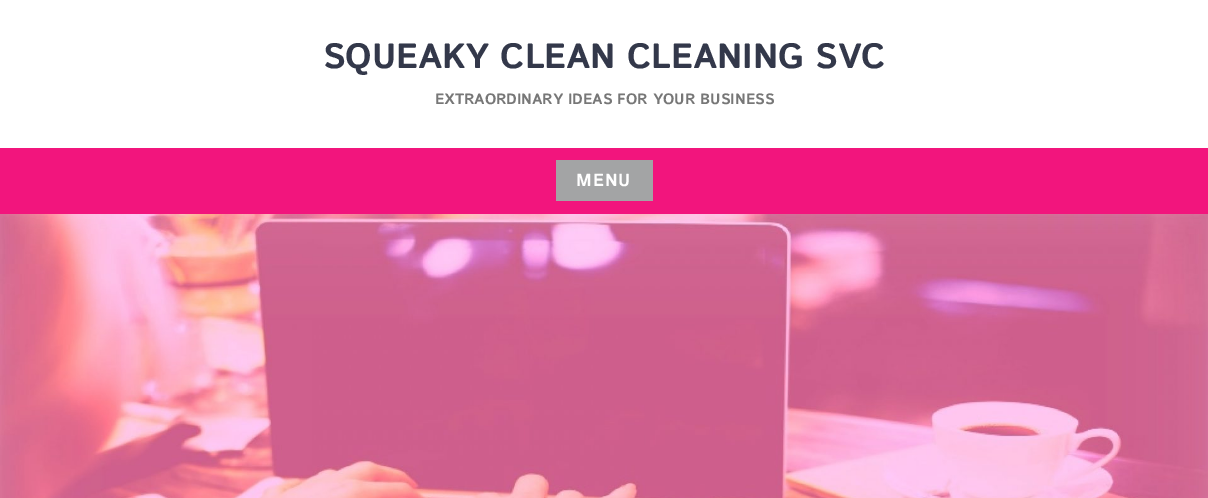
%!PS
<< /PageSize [1208 498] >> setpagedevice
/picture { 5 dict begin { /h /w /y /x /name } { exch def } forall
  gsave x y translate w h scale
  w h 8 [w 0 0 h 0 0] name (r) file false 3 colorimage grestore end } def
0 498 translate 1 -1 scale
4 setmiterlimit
1 setgray
0 0 1208 498 rectfill
/IstokWeb-Bold [35 0 0 -35 0 0] selectfont
0.2 0.22 0.29 setrgbcolor
323 68 moveto (SQUEAKY CLEAN CLEANING SVC) show
/IstokWeb-Bold [15 0 0 -15 0 0] selectfont
0.467 setgray
435 104 moveto (EXTRAORDINARY IDEAS FOR YOUR BUSINESS) show
0.949 0.082 0.49 setrgbcolor
0 148 1208 66 rectfill
0.639 0.643 0.647 setrgbcolor
556 160 97 41 rectfill
/IstokWeb-Bold [17.5 0 0 -17.5 0 0] selectfont
1 setgray
576 186 moveto 1 0 (MENU) ashow
(img1.rgb) 0 214 1208 284 picture
showpage
